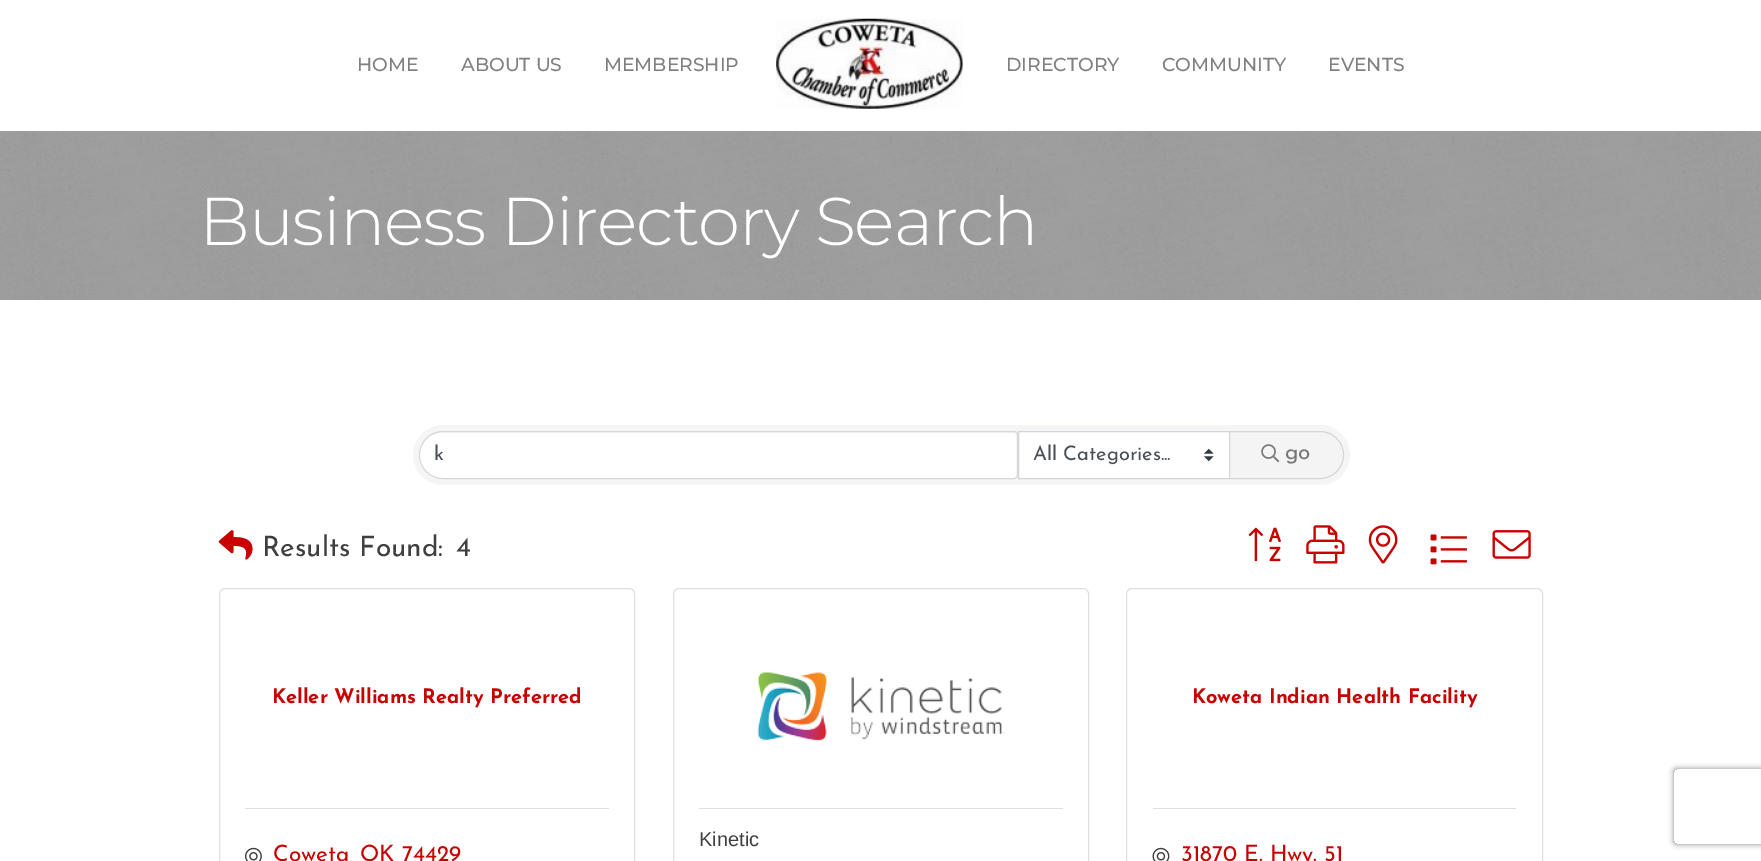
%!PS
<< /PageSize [1761 861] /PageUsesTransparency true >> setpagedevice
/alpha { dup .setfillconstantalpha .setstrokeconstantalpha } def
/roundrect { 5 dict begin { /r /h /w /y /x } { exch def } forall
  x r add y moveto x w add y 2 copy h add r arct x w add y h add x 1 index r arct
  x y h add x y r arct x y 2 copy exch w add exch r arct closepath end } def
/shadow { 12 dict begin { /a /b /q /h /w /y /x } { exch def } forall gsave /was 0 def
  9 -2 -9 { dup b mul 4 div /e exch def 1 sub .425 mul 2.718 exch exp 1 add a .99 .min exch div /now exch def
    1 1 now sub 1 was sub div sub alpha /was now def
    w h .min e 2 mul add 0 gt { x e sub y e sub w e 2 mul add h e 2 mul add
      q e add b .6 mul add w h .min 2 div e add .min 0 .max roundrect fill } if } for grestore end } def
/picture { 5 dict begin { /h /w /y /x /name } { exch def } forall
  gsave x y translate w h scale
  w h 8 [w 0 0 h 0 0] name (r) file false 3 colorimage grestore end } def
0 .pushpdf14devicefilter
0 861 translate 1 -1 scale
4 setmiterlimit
1 setgray
0 0 1761 861 rectfill
/Montserrat-Medium [18.75 0 0 -18.75 0 0] selectfont
0.502 setgray
357 71 moveto (HOME) show
461 71 moveto (ABOUT US) show
604 71 moveto (MEMBERSHIP) show
(img1.rgb) 776 18 187 91 picture
1006 71 moveto (DIRECTORY) show
1162 71 moveto (COMMUNITY) show
1328 71 moveto (EVENTS) show
(img2.rgb) 0 131 1761 169 picture
/Montserrat-Light [67.5 0 0 -67.5 0 0] selectfont
1 setgray
199 245 moveto -1.25 0 (Business Directory Search) ashow
0.961 setgray
413 425 937 60 30 roundrect fill
1 setgray
newpath 442.5 433 moveto 1013.5 433 lineto 1015 433 1016 434 1016 435.5 curveto 1016 475.5 lineto 1016 477 1015 478 1013.5 478 curveto 442.5 478 lineto 430 478 420 468 420 455.5 curveto 420 443 430 433 442.5 433 curveto closepath fill
0.12 alpha
0 setgray
newpath 443 431.5 moveto 1014 431.5 lineto 1016 431.5 1017.5 433 1017.5 435 curveto 1017.5 475 lineto 1017.5 477 1016 478.5 1014 478.5 curveto 443 478.5 lineto 430 478.5 419.5 468 419.5 455 curveto 419.5 442 430 431.5 443 431.5 curveto closepath stroke
/JosefinSans-Regular [20 0 0 -20 0 0] selectfont
1 alpha
0.286 0.314 0.341 setrgbcolor
434 460 moveto (k) show
1 setgray
1019 432 210 46 rectfill
(img3.rgb) 1204 449 10 12 picture
0.808 0.831 0.855 setrgbcolor
1018.5 431.5 211 47 rectstroke
0.286 0.314 0.341 setrgbcolor
1033 460 moveto (All Categories...) show
0.957 setgray
newpath 1229.5 431.5 moveto 1320 431.5 lineto 1333 431.5 1343.5 442 1343.5 455 curveto 1343.5 468 1333 478.5 1320 478.5 curveto 1229.5 478.5 lineto closepath gsave fill grestore
0.839 setgray
stroke
(img4.rgb) 1261 444 19 19 picture
/JosefinSans-Regular [22.5 0 0 -22.5 0 0] selectfont
0.467 setgray
1285 459 moveto (go) show
(img5.rgb) 218 530 35 30 picture
/JosefinSans-Regular [28 0 0 -28 0 0] selectfont
0.247 setgray
262 556 moveto (Results Found:) show
456 556 moveto (4) show
(img6.rgb) 1248 527 33 35 picture
(img7.rgb) 1306 525 39 39 picture
(img8.rgb) 1368 525 30 39 picture
(img9.rgb) 1430 534 37 31 picture
(img10.rgb) 1492 530 39 29 picture
0.875 setgray
219.5 588.5 415 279 5.5 roundrect stroke
/JosefinSans-Bold [20 0 0 -20 0 0] selectfont
0.784 0.004 0.004 setrgbcolor
272 703 moveto (Keller Williams Realty Preferred) show
0.875 setgray
245 808 364 1 rectfill
(img11.rgb) 245 847 17 14 picture
/JosefinSans-Regular [22.5 0 0 -22.5 0 0] selectfont
0.784 0.004 0.004 setrgbcolor
273 861 moveto (Coweta) show
360 861 moveto (OK 74429) show
0.875 setgray
673.5 588.5 415 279 5.5 roundrect stroke
(img12.rgb) 757 672 248 69 picture
699 808 364 1 rectfill
/LiberationSans-Regular [20 0 0 -20 0 0] selectfont
0.247 setgray
699 846 moveto (Kinetic) show
0.875 setgray
1126.5 588.5 416 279 5.5 roundrect stroke
/JosefinSans-Bold [20 0 0 -20 0 0] selectfont
0.784 0.004 0.004 setrgbcolor
1192 703 moveto (Koweta Indian Health Facility) show
0.875 setgray
1153 808 363 1 rectfill
(img13.rgb) 1152 847 18 14 picture
/JosefinSans-Regular [22.5 0 0 -22.5 0 0] selectfont
0.784 0.004 0.004 setrgbcolor
1181 861 moveto (31870 E. Hwy. 51) show
gsave
newpath 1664 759 moveto 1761 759 lineto 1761 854 lineto 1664 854 lineto closepath 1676.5 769 moveto 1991.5 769 lineto 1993 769 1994 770 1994 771.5 curveto 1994 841.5 lineto 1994 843 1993 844 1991.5 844 curveto 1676.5 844 lineto 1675 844 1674 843 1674 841.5 curveto 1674 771.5 lineto 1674 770 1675 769 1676.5 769 curveto closepath eoclip newpath
0.502 setgray
1674 769 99 75 2.5 3 1 shadow
grestore
.poppdf14devicefilter showpage
